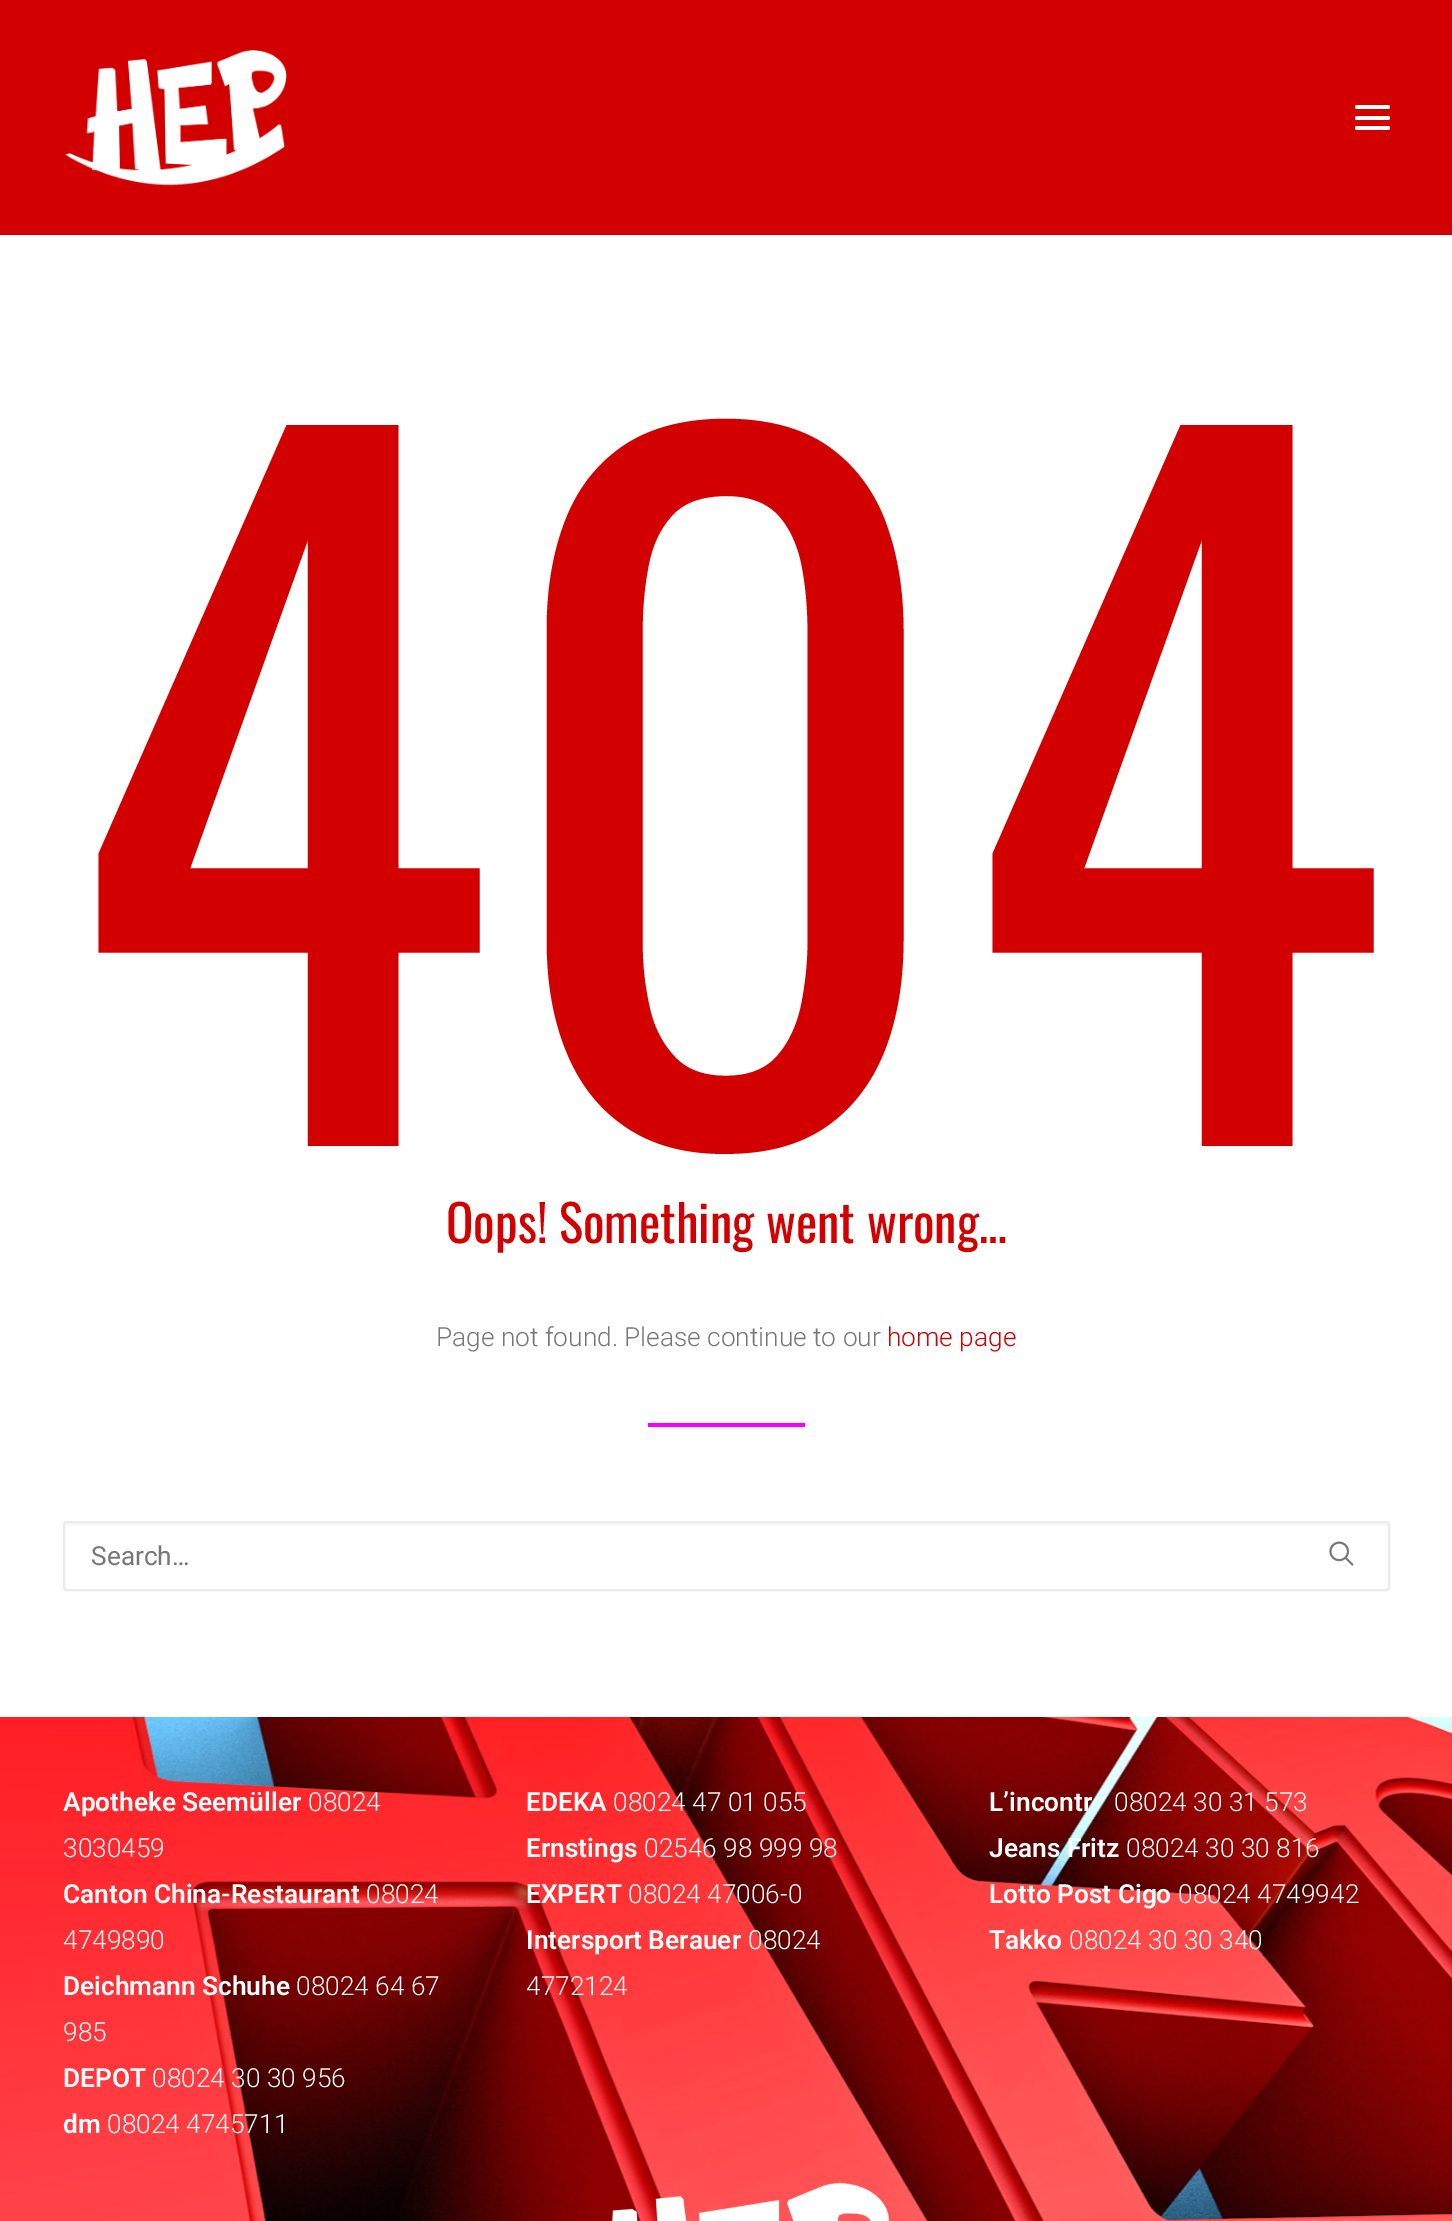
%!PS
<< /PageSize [1452 2221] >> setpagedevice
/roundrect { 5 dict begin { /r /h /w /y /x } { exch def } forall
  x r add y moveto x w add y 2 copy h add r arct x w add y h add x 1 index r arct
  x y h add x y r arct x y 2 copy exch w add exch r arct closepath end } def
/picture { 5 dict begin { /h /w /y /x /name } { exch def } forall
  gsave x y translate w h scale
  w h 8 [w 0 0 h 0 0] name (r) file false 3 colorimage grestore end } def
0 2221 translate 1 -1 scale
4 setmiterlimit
1 setgray
0 0 1452 2221 rectfill
0.827 0 0 setrgbcolor
0 0 1452 235 rectfill
(img1.rgb) 65 50 222 136 picture
1 setgray
1355 116 35 4 2 roundrect fill
1355 105 35 4 2 roundrect fill
1355 126 35 4 2 roundrect fill
/Oswald-Regular [894 0 0 -894 0 0] selectfont
0.827 0 0 setrgbcolor
63 1146 moveto (404) show
/Oswald-Regular [50.75 0 0 -50.75 0 0] selectfont
446 1243 moveto (Oops! Something went wrong…) show
/Roboto-Light [26.25 0 0 -26.25 0 0] selectfont
0.467 setgray
436 1346 moveto (Page not found. Please continue to our) show
0.827 0 0 setrgbcolor
887 1346 moveto (home page) show
0.965 0 1 setrgbcolor
648 1423 157 4 rectfill
0.976 setgray
newpath 66 1526 moveto 1386 1526 lineto 1387 1526 1388 1527 1388 1527 curveto 1388 1524 lineto 1386 1523 lineto 67 1523 lineto 65 1524 lineto 65 1527 lineto closepath fill
0.918 setgray
2 setlinewidth
64 1522 1325 68 3 roundrect stroke
/Roboto-Regular [26.25 0 0 -26.25 0 0] selectfont
0.467 setgray
91 1565 moveto (Search…) show
(img2.rgb) 1329 1541 25 25 picture
(img3.rgb) 0 1717 1452 504 picture
/Roboto-SemiBold [26.25 0 0 -26.25 0 0] selectfont
1 setgray
63 1811 moveto (Apotheke Seemüller) show
/Roboto-Light [26.25 0 0 -26.25 0 0] selectfont
308 1811 moveto (08024) show
63 1857 moveto (3030459) show
/Roboto-SemiBold [26.25 0 0 -26.25 0 0] selectfont
63 1903 moveto (Canton China-Restaurant) show
/Roboto-Light [26.25 0 0 -26.25 0 0] selectfont
366 1903 moveto (08024) show
63 1949 moveto (4749890) show
/Roboto-SemiBold [26.25 0 0 -26.25 0 0] selectfont
63 1995 moveto (Deichmann Schuhe) show
/Roboto-Light [26.25 0 0 -26.25 0 0] selectfont
296 1995 moveto (08024 64 67) show
63 2041 moveto (985) show
/Roboto-SemiBold [26.25 0 0 -26.25 0 0] selectfont
63 2087 moveto (DEPOT) show
/Roboto-Light [26.25 0 0 -26.25 0 0] selectfont
152 2087 moveto (08024 30 30 956) show
/Roboto-SemiBold [26.25 0 0 -26.25 0 0] selectfont
63 2133 moveto (dm) show
/Roboto-Light [26.25 0 0 -26.25 0 0] selectfont
107 2133 moveto (08024 4745711) show
/Roboto-SemiBold [26.25 0 0 -26.25 0 0] selectfont
526 1811 moveto (EDEKA) show
/Roboto-Light [26.25 0 0 -26.25 0 0] selectfont
613 1811 moveto (08024 47 01 055) show
/Roboto-SemiBold [26.25 0 0 -26.25 0 0] selectfont
526 1857 moveto (Ernstings) show
/Roboto-Light [26.25 0 0 -26.25 0 0] selectfont
644 1857 moveto (02546 98 999 98) show
/Roboto-SemiBold [26.25 0 0 -26.25 0 0] selectfont
526 1903 moveto (EXPERT) show
/Roboto-Light [26.25 0 0 -26.25 0 0] selectfont
628 1903 moveto (08024 47006-0) show
/Roboto-SemiBold [26.25 0 0 -26.25 0 0] selectfont
526 1949 moveto (Intersport Berauer) show
/Roboto-Light [26.25 0 0 -26.25 0 0] selectfont
748 1949 moveto (08024) show
526 1995 moveto (4772124) show
/Roboto-SemiBold [26.25 0 0 -26.25 0 0] selectfont
989 1811 moveto (L’incontr) show
/Roboto-Light [26.25 0 0 -26.25 0 0] selectfont
1114 1811 moveto (08024 30 31 573) show
/Roboto-SemiBold [26.25 0 0 -26.25 0 0] selectfont
989 1857 moveto (Jeans Fritz) show
/Roboto-Light [26.25 0 0 -26.25 0 0] selectfont
1126 1857 moveto (08024 30 30 816) show
/Roboto-SemiBold [26.25 0 0 -26.25 0 0] selectfont
989 1903 moveto (Lotto Post Cigo) show
/Roboto-Light [26.25 0 0 -26.25 0 0] selectfont
1178 1903 moveto (08024 4749942) show
/Roboto-SemiBold [26.25 0 0 -26.25 0 0] selectfont
989 1949 moveto (Takko) show
/Roboto-Light [26.25 0 0 -26.25 0 0] selectfont
1069 1949 moveto (08024 30 30 340) show
(img4.rgb) 612 2182 278 39 picture
showpage
